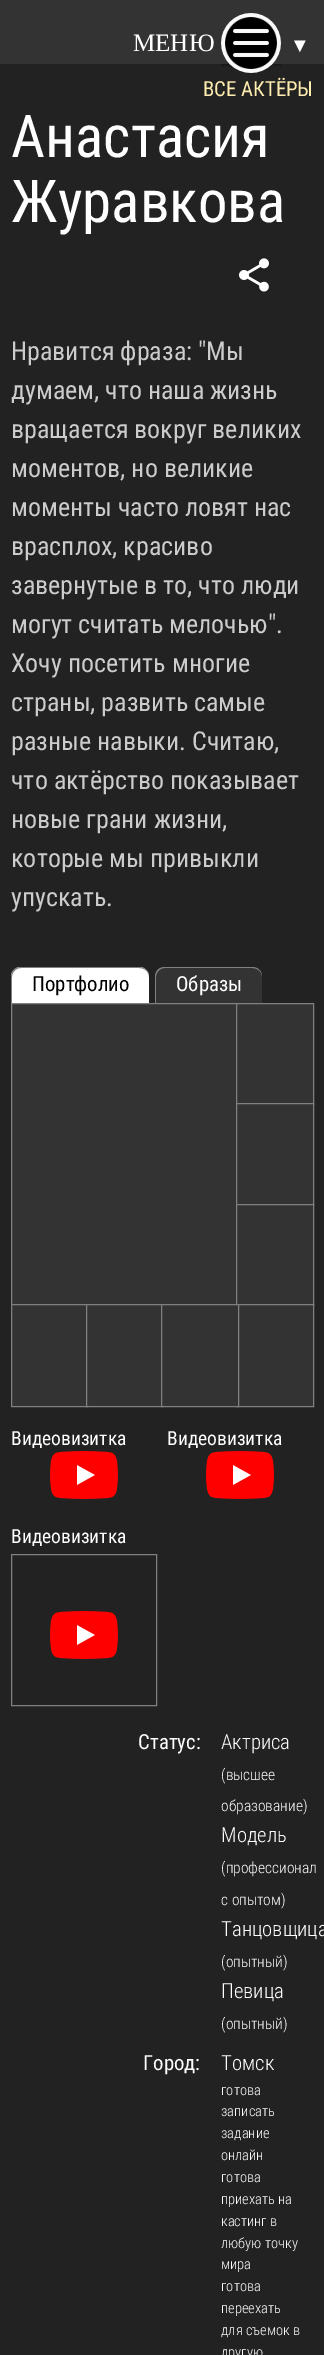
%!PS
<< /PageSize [324 2355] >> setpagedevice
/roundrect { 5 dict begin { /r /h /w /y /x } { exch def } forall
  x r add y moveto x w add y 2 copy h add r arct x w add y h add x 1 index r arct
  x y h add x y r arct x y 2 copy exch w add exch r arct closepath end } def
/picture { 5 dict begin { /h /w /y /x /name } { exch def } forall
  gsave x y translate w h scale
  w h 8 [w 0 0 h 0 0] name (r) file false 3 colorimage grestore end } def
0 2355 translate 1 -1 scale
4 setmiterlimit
0.133 setgray
0 0 324 2355 rectfill
0.2 setgray
0 0 324 64 rectfill
/LiberationSerif-Regular [25 0 0 -25 0 0] selectfont
1 setgray
133 51 moveto (МЕНЮ) show
(img1.rgb) 221 13 60 60 picture
/LiberationSerif-Regular [20 0 0 -20 0 0] selectfont
290 52 moveto (▼) show
/RobotoCondensed-Regular [20.75 0 0 -20.75 0 0] selectfont
1 0.925 0.69 setrgbcolor
203 96 moveto (ВСЕ АКТЁРЫ) show
/RobotoCondensed-Regular [59 0 0 -59 0 0] selectfont
1 setgray
11 157 moveto (Анастасия) show
11 222 moveto (Журавкова) show
(img2.rgb) 239 258 30 34 picture
/RobotoCondensed-Regular [26 0 0 -26 0 0] selectfont
0.8 setgray
11 360 moveto (Нравится фраза: "Мы) show
11 399 moveto (думаем, что наша жизнь) show
11 438 moveto (вращается вокруг великих) show
11 477 moveto (моментов, но великие) show
11 516 moveto (моменты часто ловят нас) show
11 555 moveto (врасплох, красиво) show
11 594 moveto (завернутые в то, что люди) show
11 633 moveto (могут считать мелочью".) show
11 672 moveto (Хочу посетить многие) show
11 711 moveto (страны, развить самые) show
11 750 moveto (разные навыки. Считаю,) show
11 789 moveto (что актёрство показывает) show
11 828 moveto (новые грани жизни,) show
11 867 moveto (которые мы привыкли) show
11 906 moveto (упускать.) show
1 setgray
11 967 138 49 10 roundrect fill
0.502 setgray
newpath 21 967 moveto 139 967 lineto 145 967 149 971 149 977 curveto 149 1006 lineto 149 1012 145 1016 139 1016 curveto 21 1016 lineto 15 1016 11 1012 11 1006 curveto 11 977 lineto 11 971 15 967 21 967 curveto closepath 21 968 moveto 139 968 lineto 145 968 149 972 149 977 curveto 149 1006 lineto 149 1012 145 1016 139 1016 curveto 21 1016 lineto 16 1016 12 1012 12 1006 curveto 12 977 lineto 12 972 16 968 21 968 curveto closepath eofill
/RobotoCondensed-Regular [20.75 0 0 -20.75 0 0] selectfont
0 setgray
32 991 moveto (Портфолио) show
0.2 setgray
155 967 107 49 10 roundrect fill
0.502 setgray
newpath 165 967 moveto 252 967 lineto 258 967 262 971 262 977 curveto 262 1006 lineto 262 1012 258 1016 252 1016 curveto 165 1016 lineto 159 1016 155 1012 155 1006 curveto 155 977 lineto 155 971 159 967 165 967 curveto closepath 165 968 moveto 252 968 lineto 258 968 262 972 262 977 curveto 262 1006 lineto 262 1012 258 1016 252 1016 curveto 165 1016 lineto 160 1016 156 1012 156 1006 curveto 156 977 lineto 156 972 160 968 165 968 curveto closepath eofill
1 setgray
176 991 moveto (Образы) show
0.2 setgray
12 1004 224 300 rectfill
0.502 setgray
11.5 1003.5 228 304 rectstroke
0.2 setgray
237 1004 76 99 rectfill
0.502 setgray
236.5 1003.5 77 101 rectstroke
0.2 setgray
237 1104 76 100 rectfill
0.502 setgray
236.5 1103.5 77 102 rectstroke
0.2 setgray
237 1205 76 99 rectfill
0.502 setgray
236.5 1204.5 77 101 rectstroke
0.2 setgray
12 1305 74 101 rectfill
0.502 setgray
11.5 1304.5 76 102 rectstroke
0.2 setgray
87 1305 74 101 rectfill
0.502 setgray
86.5 1304.5 76 102 rectstroke
0.2 setgray
239 1305 74 101 rectfill
0.502 setgray
236.5 1304.5 77 102 rectstroke
0.2 setgray
newpath 161.5 1304.5 moveto 238.5 1304.5 lineto 238.5 1406.5 lineto 161.5 1406.5 lineto closepath gsave fill grestore
0.502 setgray
stroke
/RobotoCondensed-Regular [19.5 0 0 -19.5 0 0] selectfont
1 setgray
11 1445 moveto (Видеовизитка) show
(img3.rgb) 50 1451 68 48 picture
167 1445 moveto (Видеовизитка) show
(img3.rgb) 206 1451 68 48 picture
11 1543 moveto (Видеовизитка) show
0.502 setgray
11.5 1554.5 145 151 rectstroke
(img3.rgb) 50 1611 68 48 picture
/RobotoCondensed-Regular [20.75 0 0 -20.75 0 0] selectfont
1 setgray
138 1749 moveto (Статус:) show
/RobotoCondensed-Light [20.75 0 0 -20.75 0 0] selectfont
221 1749 moveto (Актриса) show
/RobotoCondensed-Light [15.5 0 0 -15.5 0 0] selectfont
221 1780 moveto (\(высшее) show
221 1811 moveto (образование\)) show
/RobotoCondensed-Light [20.75 0 0 -20.75 0 0] selectfont
221 1842 moveto (Модель) show
/RobotoCondensed-Light [15.5 0 0 -15.5 0 0] selectfont
221 1873 moveto (\(профессионал) show
221 1905 moveto (с опытом\)) show
/RobotoCondensed-Light [20.75 0 0 -20.75 0 0] selectfont
221 1936 moveto (Танцовщица) show
/RobotoCondensed-Light [15.5 0 0 -15.5 0 0] selectfont
221 1967 moveto (\(опытный\)) show
/RobotoCondensed-Light [20.75 0 0 -20.75 0 0] selectfont
221 1998 moveto (Певица) show
/RobotoCondensed-Light [15.5 0 0 -15.5 0 0] selectfont
221 2029 moveto (\(опытный\)) show
/RobotoCondensed-Regular [20.75 0 0 -20.75 0 0] selectfont
143 2070 moveto (Город:) show
/RobotoCondensed-Light [20.75 0 0 -20.75 0 0] selectfont
221 2070 moveto (Томск) show
/RobotoCondensed-Light [14.5 0 0 -14.5 0 0] selectfont
221 2095 moveto (готова) show
221 2116 moveto (записать) show
221 2138 moveto (задание) show
221 2160 moveto (онлайн) show
221 2182 moveto (готова) show
221 2204 moveto (приехать на) show
221 2226 moveto (кастинг в) show
221 2248 moveto (любую точку) show
221 2269 moveto (мира) show
221 2291 moveto (готова) show
221 2313 moveto (переехать) show
221 2335 moveto (для съемок в) show
221 2357 moveto (другую) show
showpage
